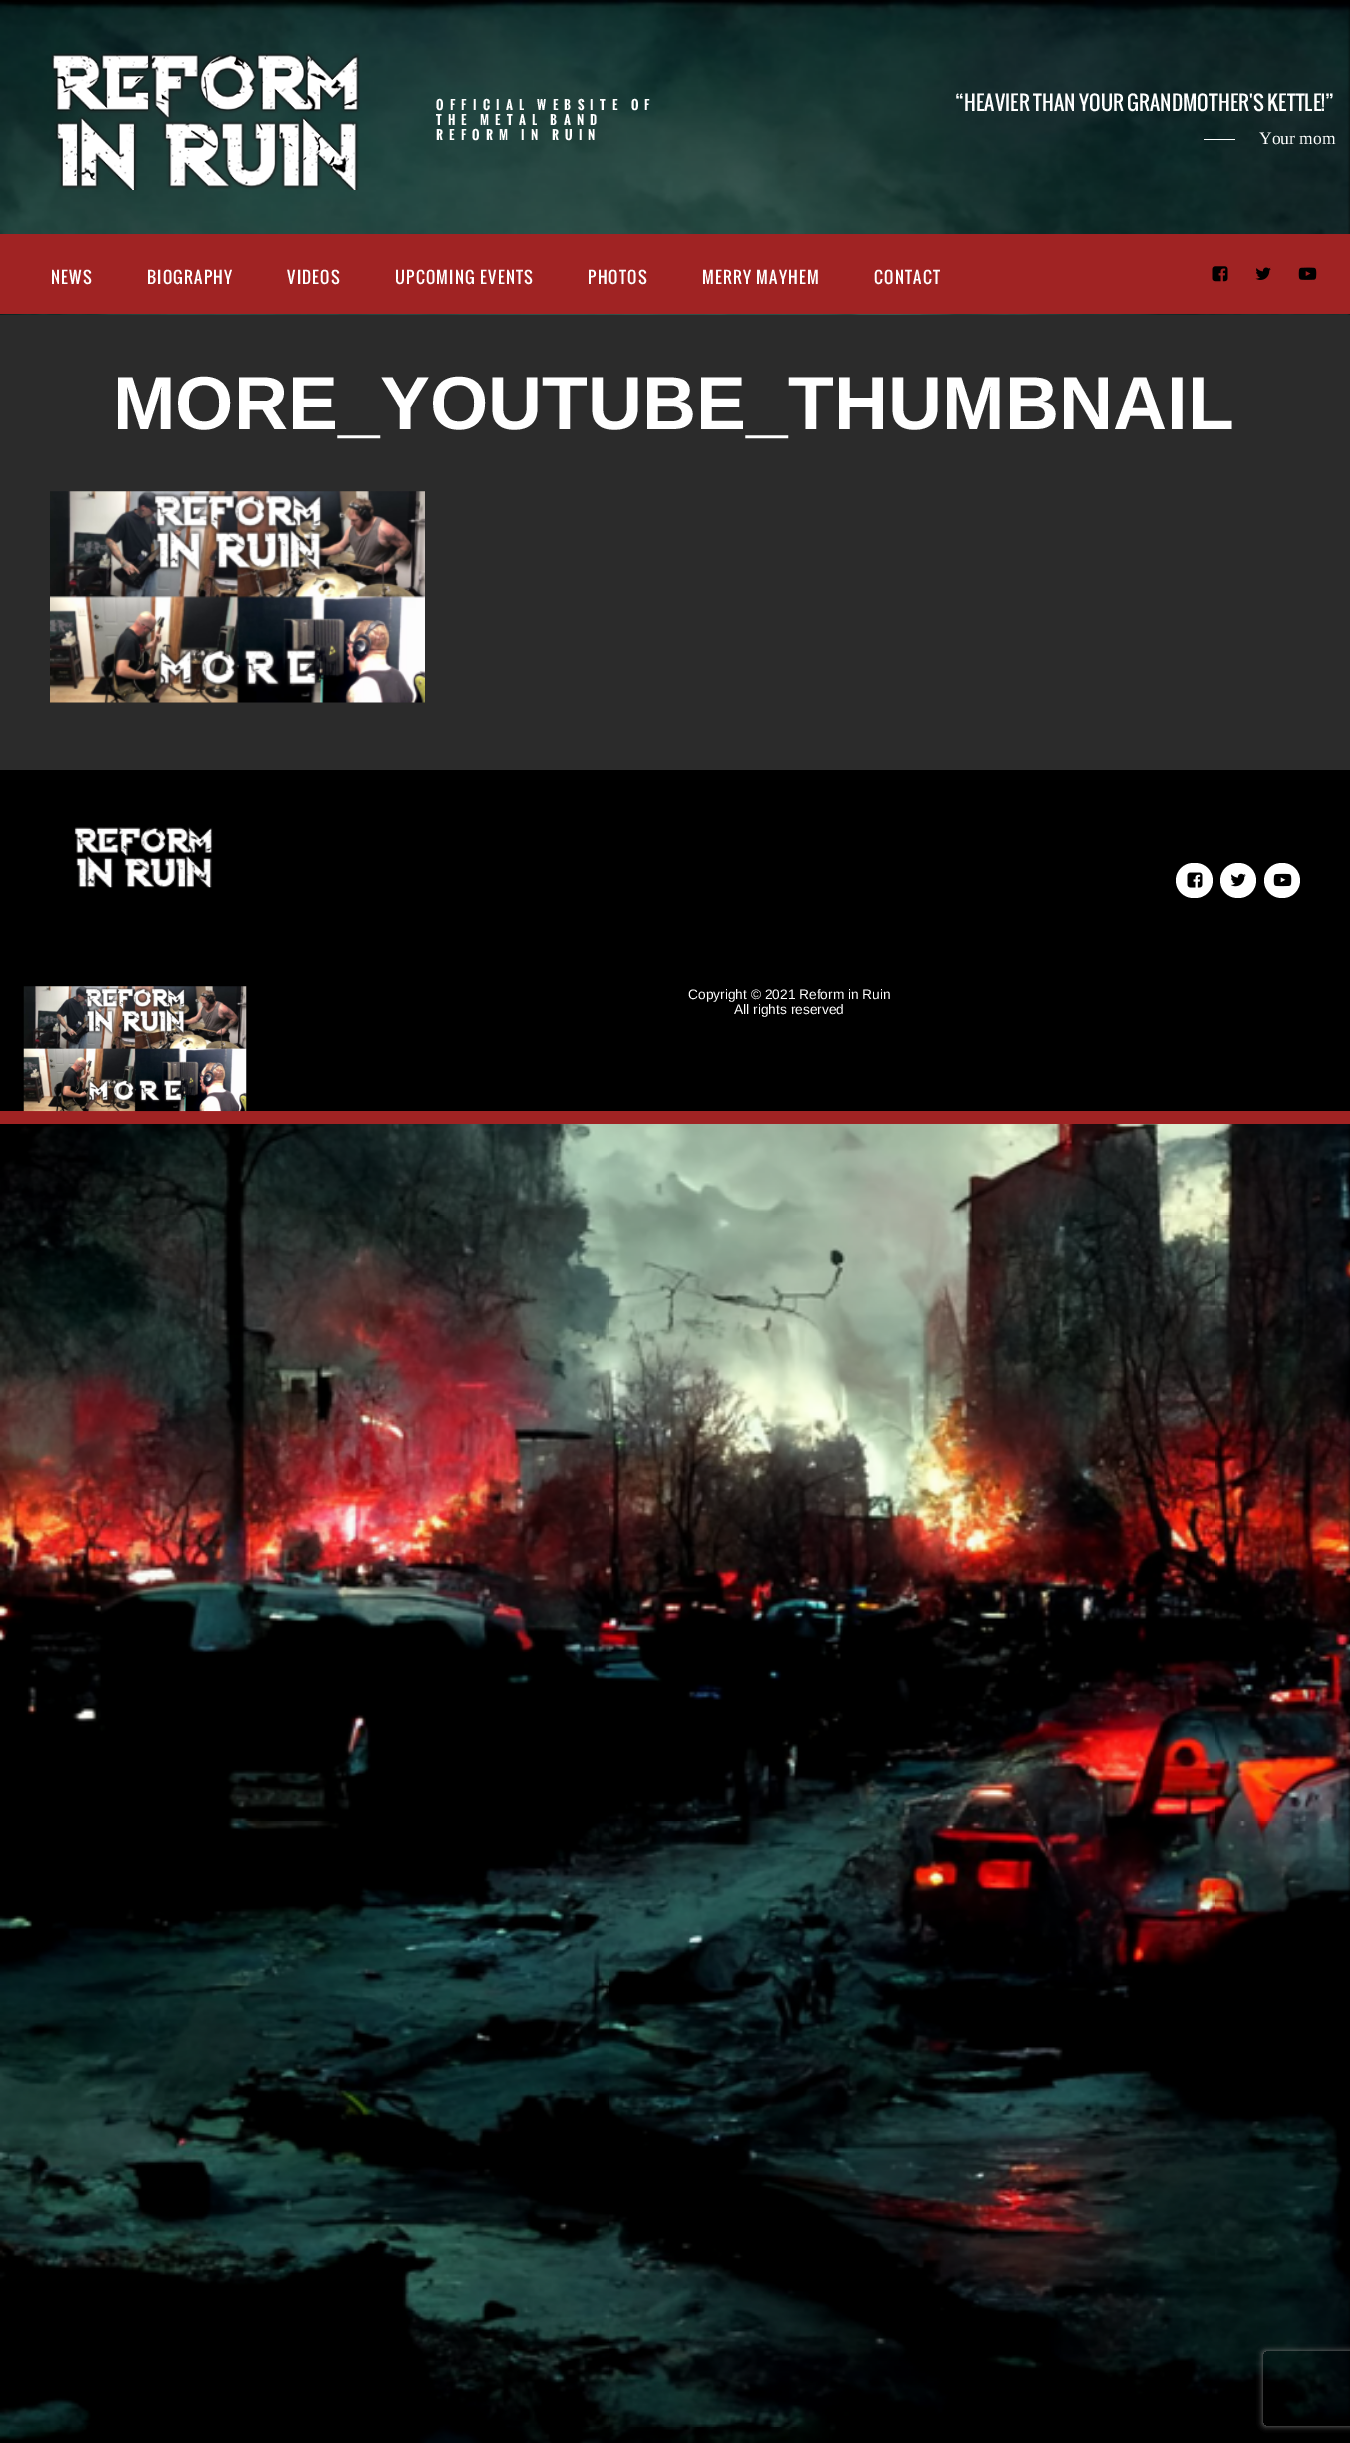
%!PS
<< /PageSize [1350 2443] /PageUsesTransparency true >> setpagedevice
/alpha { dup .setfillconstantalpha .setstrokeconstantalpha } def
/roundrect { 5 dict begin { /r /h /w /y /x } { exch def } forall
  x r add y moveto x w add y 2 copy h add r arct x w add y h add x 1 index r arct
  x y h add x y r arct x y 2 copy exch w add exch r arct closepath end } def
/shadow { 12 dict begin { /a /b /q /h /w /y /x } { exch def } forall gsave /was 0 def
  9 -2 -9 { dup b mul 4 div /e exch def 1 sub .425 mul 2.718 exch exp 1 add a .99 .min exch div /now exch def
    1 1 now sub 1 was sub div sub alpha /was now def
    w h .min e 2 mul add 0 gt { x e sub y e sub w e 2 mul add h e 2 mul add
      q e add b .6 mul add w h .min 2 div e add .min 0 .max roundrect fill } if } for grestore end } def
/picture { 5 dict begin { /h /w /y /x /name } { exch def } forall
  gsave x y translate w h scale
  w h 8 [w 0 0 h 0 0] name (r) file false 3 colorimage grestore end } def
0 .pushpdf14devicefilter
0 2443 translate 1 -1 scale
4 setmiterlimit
1 setgray
0 0 1350 2443 rectfill
(img1.rgb) 0 0 1350 2443 picture
0.627 0.137 0.137 setrgbcolor
0 1111 1350 13 rectfill
(img2.rgb) 51 53 309 137 picture
/Oswald-Bold [12.5 0 0 -12.5 0 0] selectfont
1 setgray
436 110 moveto -1 0 32 6.25 0 (OFFICIAL WEBSITE OF) awidthshow
436 125 moveto -1 0 32 6.25 0 (THE METAL BAND) awidthshow
436 140 moveto -1 0 32 6.25 0 (REFORM IN RUIN) awidthshow
/Oswald-Regular [20 0 0 -20 0 0] selectfont
955 111 moveto 0.1 0 (“HEAVIER THAN YOUR GRANDMOTHER'S KETTLE!”) ashow
1204 139 31 1 rectfill
/LiberationSerif-Regular [17.5 0 0 -17.5 0 0] selectfont
1259 144 moveto (Your mom) show
0.627 0.137 0.137 setrgbcolor
0 234 1350 80 rectfill
/Oswald-Regular [16.25 0 0 -16.25 0 0] selectfont
1 setgray
51 284 moveto 1.25 0 (NEWS) ashow
147 284 moveto 1.25 0 (BIOGRAPHY) ashow
287 284 moveto 1.25 0 (VIDEOS) ashow
395 284 moveto 1.25 0 (UPCOMING EVENTS) ashow
588 284 moveto 1.25 0 (PHOTOS) ashow
702 284 moveto 1.25 0 (MERRY MAYHEM) ashow
874 284 moveto 1.25 0 (CONTACT) ashow
(img3.rgb) 1212 266 16 16 picture
(img4.rgb) 1255 267 16 13 picture
(img5.rgb) 1298 267 19 13 picture
0.169 setgray
0 315 1350 455 rectfill
/LiberationSans-Bold [75 0 0 -75 0 0] selectfont
1 setgray
113 429 moveto (MORE_YOUTUBE_THUMBNAIL) show
(img6.rgb) 50 491 375 212 picture
0 setgray
0 770 1350 341 rectfill
(img7.rgb) 74 827 139 61 picture
1 setgray
1176 863 37 35 17.5 roundrect fill
(img8.rgb) 1187 872 16 16 picture
1220 863 36 35 17.5 roundrect fill
(img9.rgb) 1230 873 16 14 picture
1264 863 36 35 17.5 roundrect fill
(img10.rgb) 1273 873 19 14 picture
(img11.rgb) 23 986 224 126 picture
/LiberationSans-Regular [13.75 0 0 -13.75 0 0] selectfont
688 999 moveto (Copyright © 2021 Reform in Ruin) show
734 1014 moveto (All rights reserved) show
gsave
newpath 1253 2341 moveto 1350 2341 lineto 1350 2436 lineto 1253 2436 lineto closepath 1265.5 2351 moveto 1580.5 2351 lineto 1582 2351 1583 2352 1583 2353.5 curveto 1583 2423.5 lineto 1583 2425 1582 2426 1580.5 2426 curveto 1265.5 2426 lineto 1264 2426 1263 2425 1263 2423.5 curveto 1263 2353.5 lineto 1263 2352 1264 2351 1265.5 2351 curveto closepath eoclip newpath
0.502 setgray
1263 2351 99 75 2.5 3 1 shadow
grestore
.poppdf14devicefilter showpage
